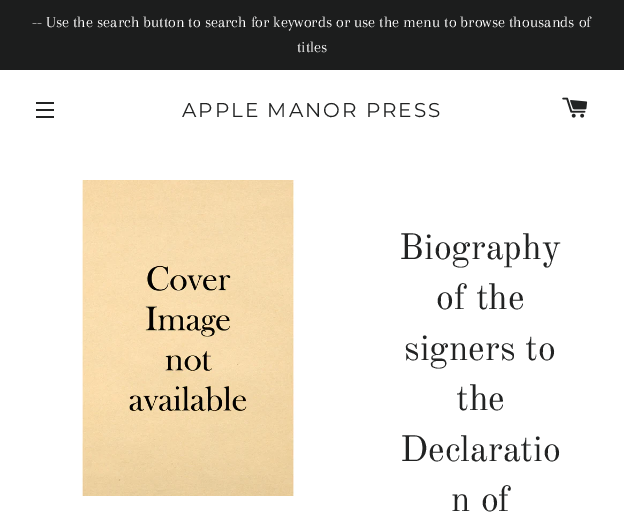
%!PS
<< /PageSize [624 525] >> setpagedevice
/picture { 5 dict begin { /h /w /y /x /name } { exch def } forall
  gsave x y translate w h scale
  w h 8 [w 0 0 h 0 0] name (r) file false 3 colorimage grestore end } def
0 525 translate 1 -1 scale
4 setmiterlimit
1 setgray
0 0 624 525 rectfill
0.11 0.114 0.114 setrgbcolor
0 0 624 70 rectfill
/Arapey-Regular [16 0 0 -16 0 0] selectfont
1 setgray
32 27 moveto (-- Use the search button to search for keywords or use the menu to browse thousands of) show
297 52 moveto (titles) show
0.133 0.137 0.137 setrgbcolor
36 102 18 2 rectfill
36 109 18 2 rectfill
36 116 18 2 rectfill
/Montserrat-Thin [20 0 0 -20 0 0] selectfont
182 117 moveto 2 0 (APPLE MANOR PRESS) ashow
(img1.rgb) 562 97 26 21 picture
(img2.rgb) 30 180 316 316 picture
/OldStandardTT-Regular [36 0 0 -36 0 0] selectfont
399 259 moveto (Biography) show
436 309 moveto (of the) show
404 360 moveto (signers to) show
456 410 moveto (the) show
400 461 moveto (Declaratio) show
451 511 moveto (n of) show
showpage
